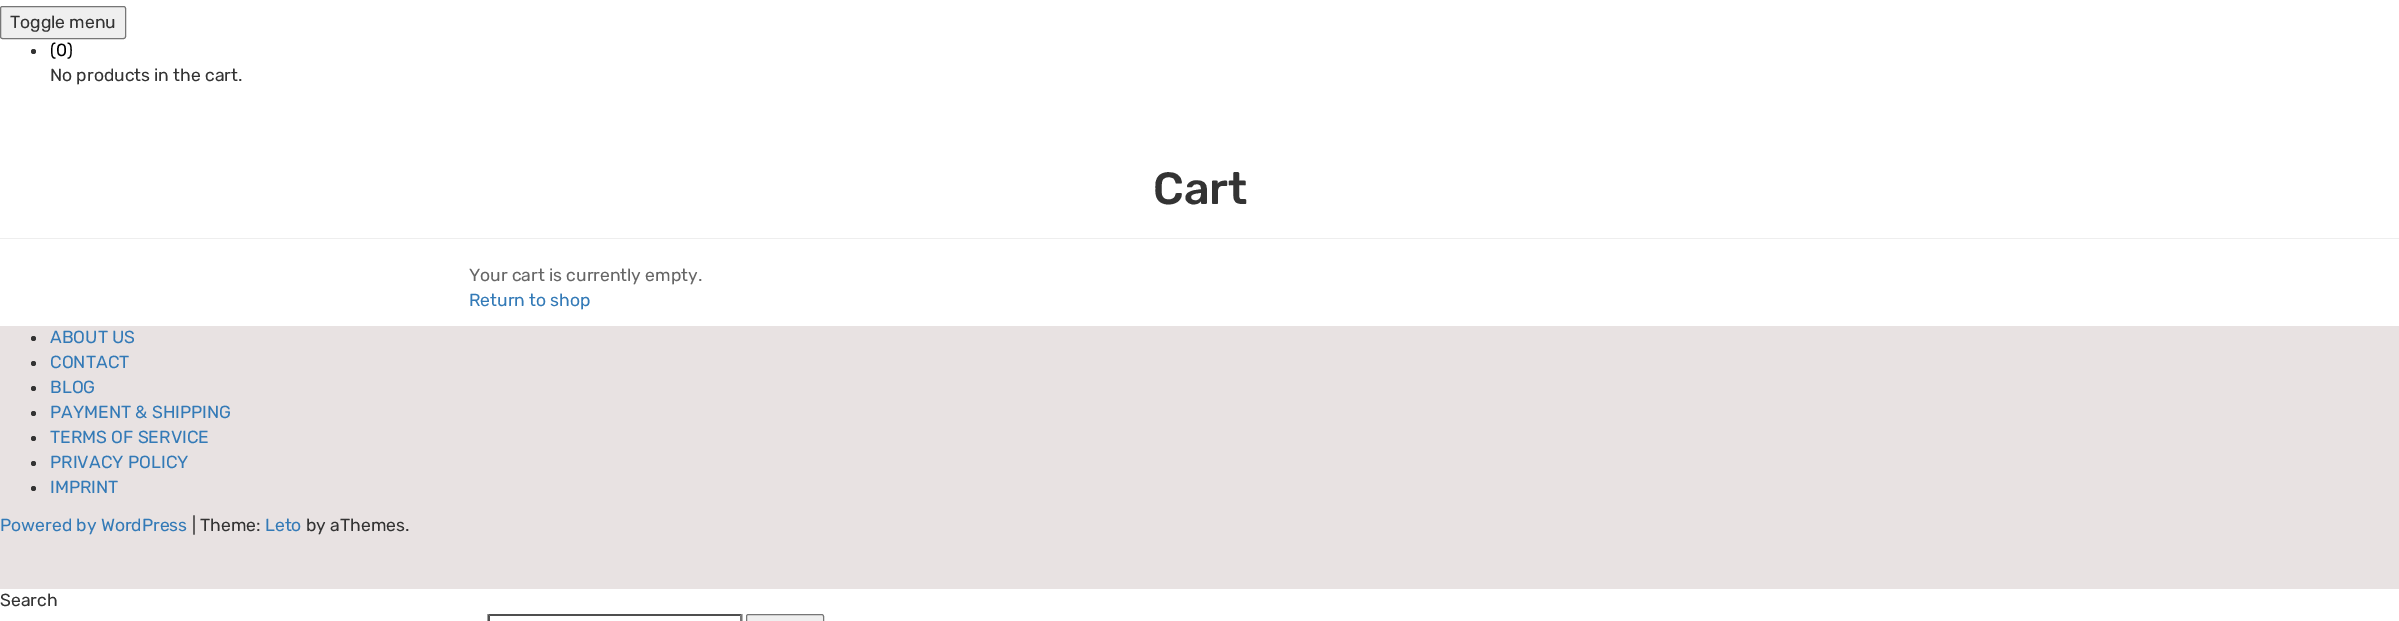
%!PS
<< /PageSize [2399 621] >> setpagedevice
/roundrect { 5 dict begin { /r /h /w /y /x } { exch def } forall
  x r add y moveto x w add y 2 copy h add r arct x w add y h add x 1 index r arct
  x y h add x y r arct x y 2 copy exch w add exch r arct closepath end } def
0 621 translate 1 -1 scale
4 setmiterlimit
1 setgray
0 0 2399 621 rectfill
0.937 setgray
0.5 6.5 125 32 2 roundrect gsave fill grestore
0.463 setgray
stroke
/Rubik-Regular [17.5 0 0 -17.5 0 0] selectfont
0.2 setgray
10 28 moveto (Toggle menu) show
newpath 33.5 51.5 2.5 0 360 arc closepath fill
0 setgray
50 56 moveto (\(0\)) show
0.2 setgray
50 81 moveto (No products in the cart.) show
0.933 setgray
0 238 2399 1 rectfill
/Rubik-Medium [45 0 0 -45 0 0] selectfont
0.2 setgray
1153 204 moveto (Cart) show
/Rubik-Regular [17.5 0 0 -17.5 0 0] selectfont
0.4 setgray
469 281 moveto (Your cart is currently empty.) show
0.2 0.478 0.718 setrgbcolor
469 306 moveto (Return to shop) show
0.91 0.886 0.886 setrgbcolor
0 326 2399 263 rectfill
0.2 setgray
newpath 33.5 338.5 2.5 0 360 arc closepath fill
0.2 0.478 0.718 setrgbcolor
50 343 moveto (ABOUT US) show
0.2 setgray
newpath 33.5 363.5 2.5 0 360 arc closepath fill
0.2 0.478 0.718 setrgbcolor
50 368 moveto (CONTACT) show
0.2 setgray
newpath 33.5 388.5 2.5 0 360 arc closepath fill
0.2 0.478 0.718 setrgbcolor
50 393 moveto (BLOG) show
0.2 setgray
newpath 33.5 413.5 2.5 0 360 arc closepath fill
0.2 0.478 0.718 setrgbcolor
50 418 moveto (PAYMENT & SHIPPING) show
0.2 setgray
newpath 33.5 438.5 2.5 0 360 arc closepath fill
0.2 0.478 0.718 setrgbcolor
50 443 moveto (TERMS OF SERVICE) show
0.2 setgray
newpath 33.5 463.5 2.5 0 360 arc closepath fill
0.2 0.478 0.718 setrgbcolor
50 468 moveto (PRIVACY POLICY) show
0.2 setgray
newpath 33.5 488.5 2.5 0 360 arc closepath fill
0.2 0.478 0.718 setrgbcolor
50 493 moveto (IMPRINT) show
0 531 moveto (Powered by WordPress) show
0.2 setgray
192 531 moveto (| Theme:) show
0.2 0.478 0.718 setrgbcolor
265 531 moveto (Leto) show
0.2 setgray
306 531 moveto (by aThemes.) show
0 606 moveto (Search) show
0.31 setgray
newpath 488 614 moveto 742 614 lineto 740 616 lineto 490 616 lineto closepath fill
0.463 setgray
newpath 742.5 614 moveto 742.5 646 lineto 740 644 lineto 740 616 lineto closepath fill
0.31 setgray
newpath 487.5 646 moveto 487.5 614 lineto 490 616 lineto 490 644 lineto closepath fill
0.937 setgray
746.5 614.5 77 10 2 roundrect gsave fill grestore
0.463 setgray
stroke
showpage
